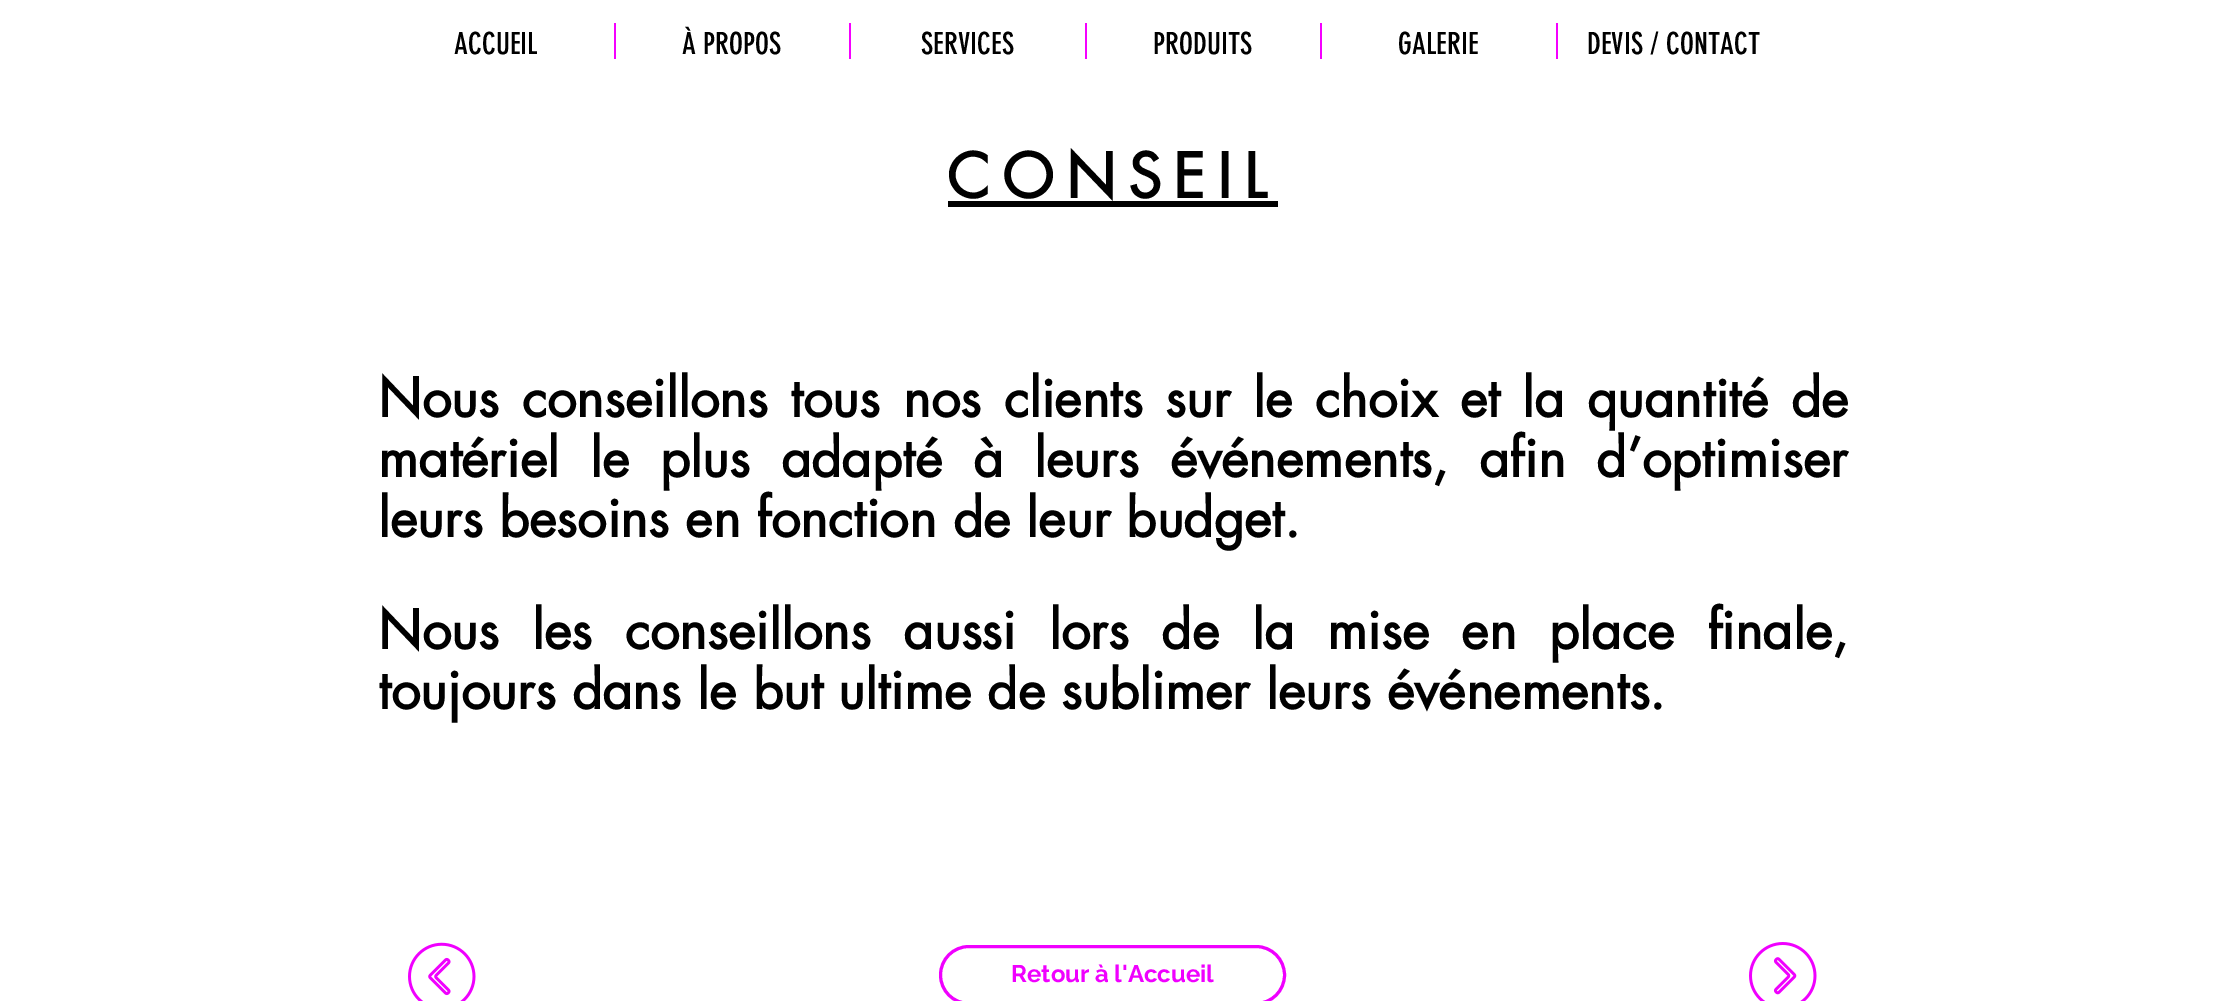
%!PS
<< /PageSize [2225 1001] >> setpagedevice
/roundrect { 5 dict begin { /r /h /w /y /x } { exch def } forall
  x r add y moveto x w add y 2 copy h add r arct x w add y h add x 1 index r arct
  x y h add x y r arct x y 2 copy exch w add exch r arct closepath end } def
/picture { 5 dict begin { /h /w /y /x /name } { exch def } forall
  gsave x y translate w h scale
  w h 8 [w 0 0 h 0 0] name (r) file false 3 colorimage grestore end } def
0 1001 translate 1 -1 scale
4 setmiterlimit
1 setgray
0 0 2225 1001 rectfill
/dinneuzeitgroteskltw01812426-Regular [30 0 0 -30 0 0] selectfont
0 setgray
454 54 moveto (ACCUEIL) show
0.961 0 1 setrgbcolor
614 23 2 36 rectfill
0 setgray
682 54 moveto (À PROPOS) show
0.961 0 1 setrgbcolor
849 23 2 36 rectfill
0 setgray
921 54 moveto (SERVICES) show
0.961 0 1 setrgbcolor
1085 23 2 36 rectfill
0 setgray
1153 54 moveto (PRODUITS) show
0.961 0 1 setrgbcolor
1320 23 2 36 rectfill
0 setgray
1398 54 moveto (GALERIE) show
0.961 0 1 setrgbcolor
1556 23 2 36 rectfill
0 setgray
1587 54 moveto (DEVIS / CONTACT) show
/futura-Bold [60 0 0 -60 0 0] selectfont
947 198 moveto 12 0 (CONSEIL) ashow
948 201 330 6 rectfill
/futura-Bold [52.5 0 0 -52.5 0 0] selectfont
378 417 moveto 6.4 0 32 (Nous conseillons tous nos clients sur le choix et la quantité de) widthshow
378 477 moveto 14.75 0 32 (matériel le plus adapté à leurs événements, afin d’optimiser) widthshow
378 537 moveto (leurs besoins en fonction de leur budget.) show
378 649 moveto 16.5 0 32 (Nous les conseillons aussi lors de la mise en place finale,) widthshow
378 709 moveto (toujours dans le but ultime de sublimer leurs événements.) show
(img1.rgb) 408 942 68 59 picture
0.941 0 1 setrgbcolor
3 setlinewidth
940.5 946.5 344 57 28.5 roundrect stroke
/Raleway-Bold [24 0 0 -24 0 0] selectfont
1011 982 moveto (Retour à l'Accueil) show
(img2.rgb) 1749 942 68 59 picture
showpage
